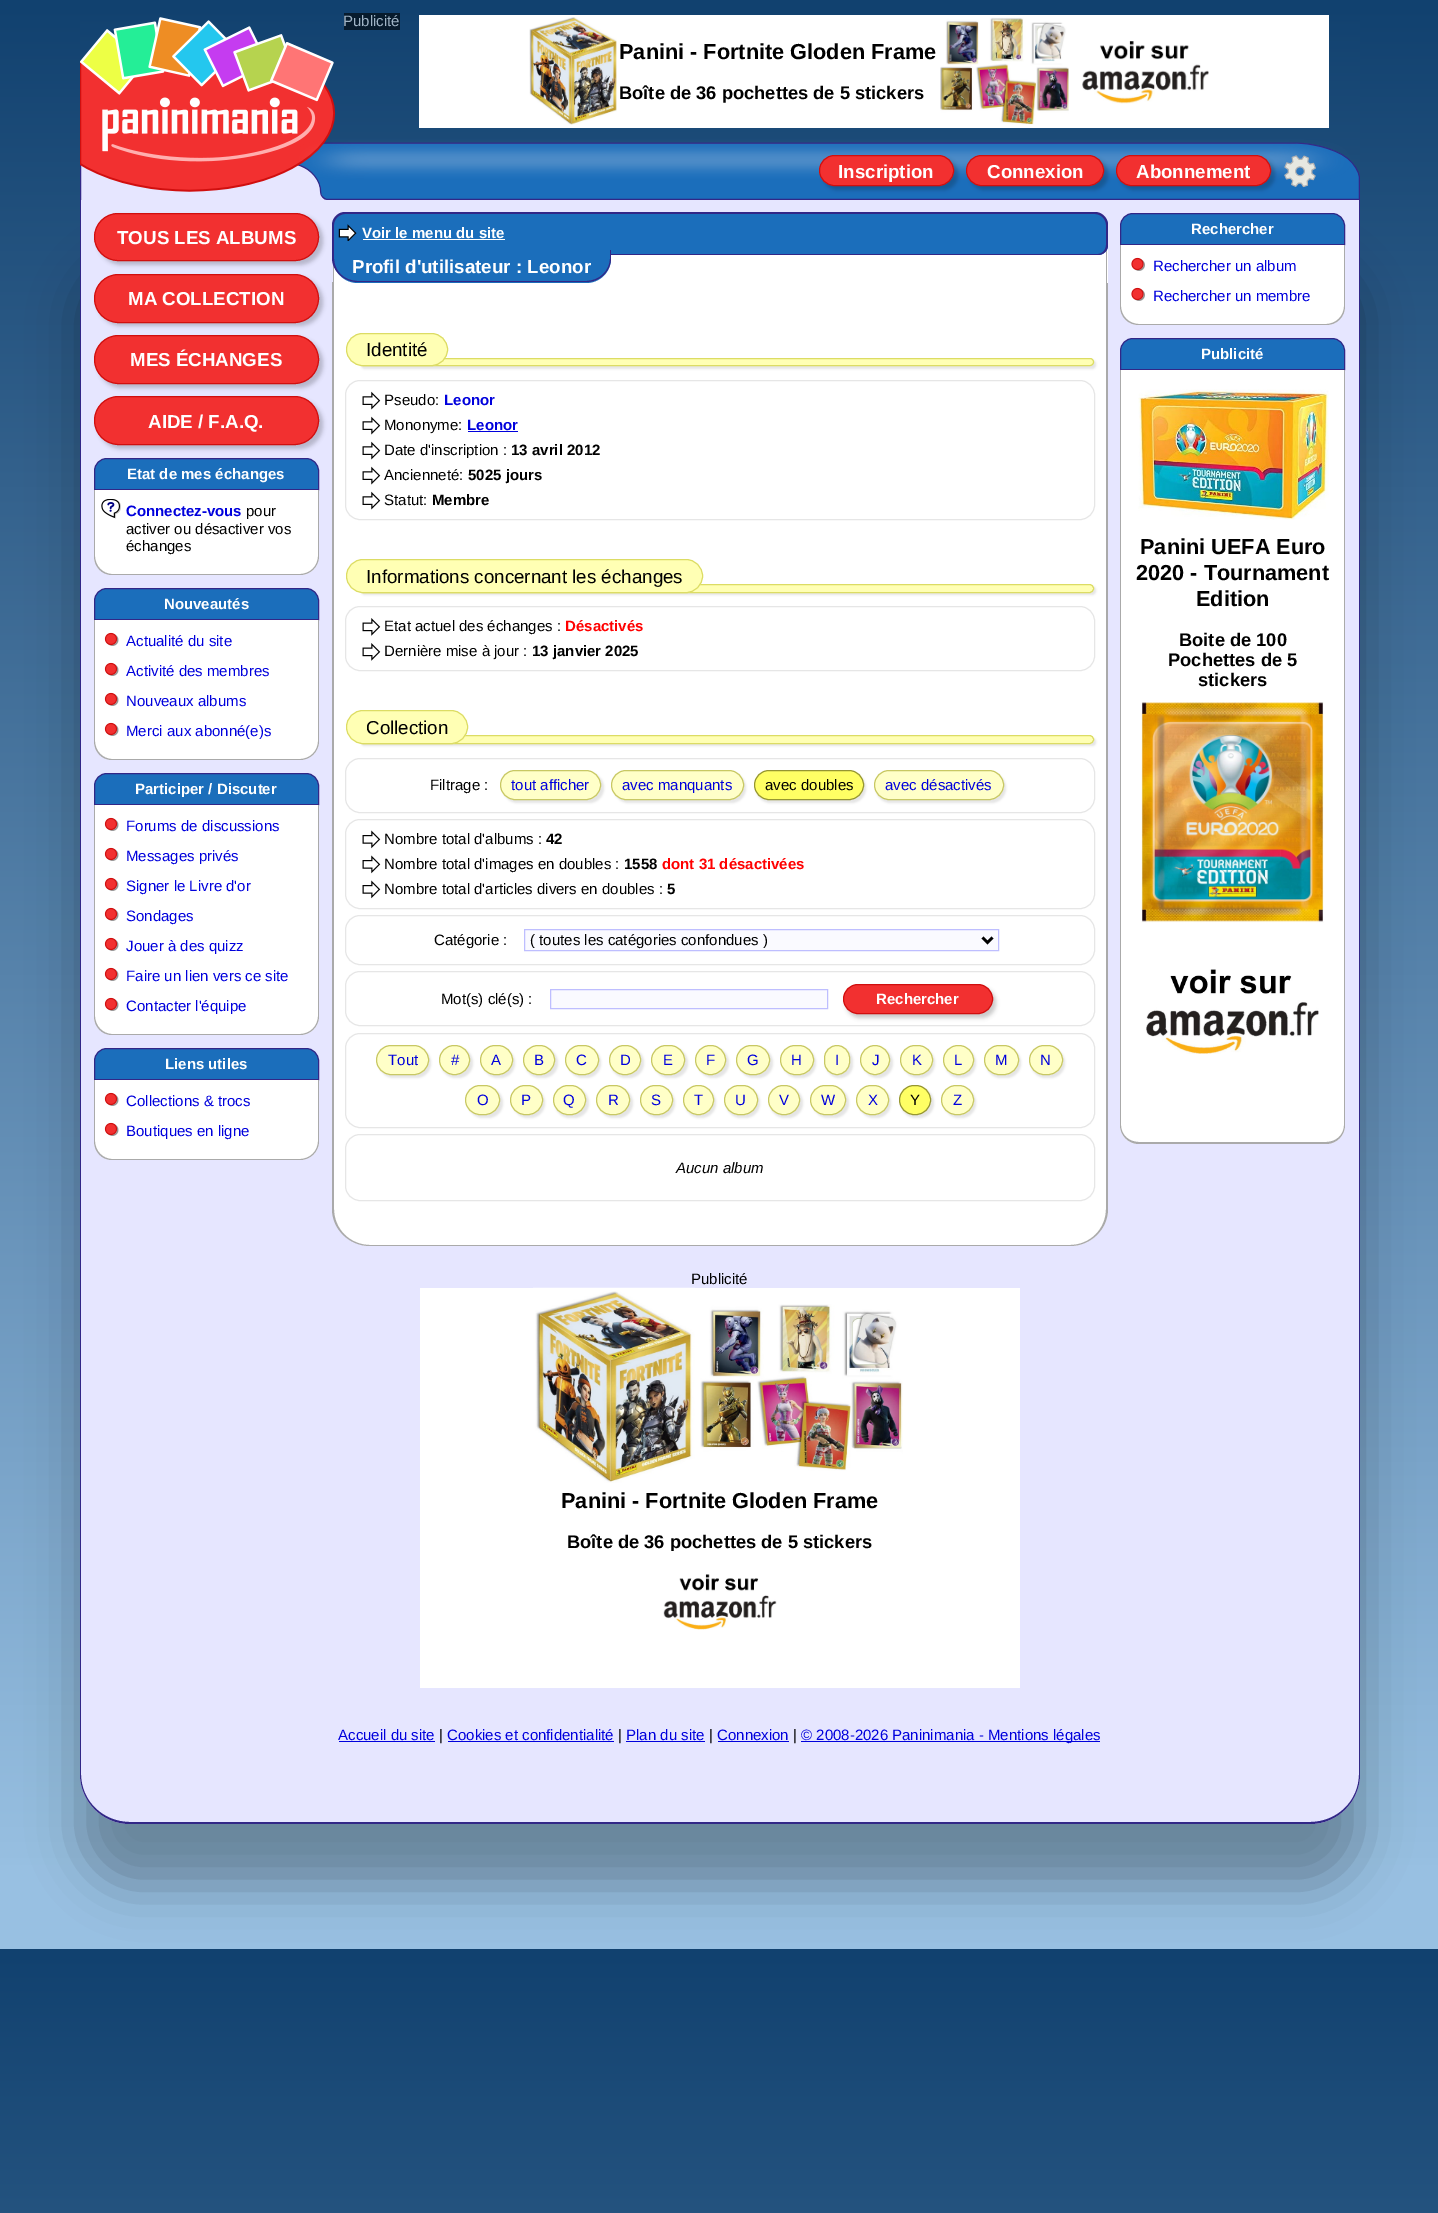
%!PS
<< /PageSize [1438 2213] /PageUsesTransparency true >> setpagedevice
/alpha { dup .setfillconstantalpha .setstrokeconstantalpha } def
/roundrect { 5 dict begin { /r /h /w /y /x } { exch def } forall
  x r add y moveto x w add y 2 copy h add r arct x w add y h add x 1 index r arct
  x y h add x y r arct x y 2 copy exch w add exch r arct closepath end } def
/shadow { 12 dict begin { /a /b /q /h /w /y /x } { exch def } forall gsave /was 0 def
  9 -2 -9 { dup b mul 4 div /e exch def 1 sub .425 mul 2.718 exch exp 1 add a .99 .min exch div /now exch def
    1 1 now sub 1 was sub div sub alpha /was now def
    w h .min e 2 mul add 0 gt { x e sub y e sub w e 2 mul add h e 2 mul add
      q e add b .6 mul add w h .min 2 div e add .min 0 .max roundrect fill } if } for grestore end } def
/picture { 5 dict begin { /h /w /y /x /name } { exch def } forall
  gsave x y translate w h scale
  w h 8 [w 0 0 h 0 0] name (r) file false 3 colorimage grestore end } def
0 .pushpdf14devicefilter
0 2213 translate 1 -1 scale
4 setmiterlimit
1 setgray
0 0 1438 2213 rectfill
gsave newpath 0 0 moveto 1438 0 lineto 1438 1949 lineto 0 1949 lineto closepath clip newpath
<< /ShadingType 2 /ColorSpace /DeviceRGB /Coords [719 0 719 1949] /Extend [true true] /Function << /FunctionType 3 /Domain [0 1] /Functions [<< /FunctionType 2 /Domain [0 1] /C0 [0.067 0.255 0.435] /C1 [0.596 0.753 0.886] /N 1 >> << /FunctionType 2 /Domain [0 1] /C0 [0.596 0.753 0.886] /C1 [0.596 0.753 0.886] /N 1 >>] /Bounds [0.96] /Encode [0 1 0 1] >> >> shfill grestore
gsave newpath 0 1949 moveto 1438 1949 lineto 1438 2213 lineto 0 2213 lineto closepath clip newpath
<< /ShadingType 2 /ColorSpace /DeviceRGB /Coords [719 1949 719 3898] /Extend [true true] /Function << /FunctionType 3 /Domain [0 1] /Functions [<< /FunctionType 2 /Domain [0 1] /C0 [0.067 0.255 0.435] /C1 [0.596 0.753 0.886] /N 1 >> << /FunctionType 2 /Domain [0 1] /C0 [0.596 0.753 0.886] /C1 [0.596 0.753 0.886] /N 1 >>] /Bounds [0.96] /Encode [0 1 0 1] >> >> shfill grestore
(img17.rgb) 80 17 1280 183 picture
(img19.rgb) 1284 155 32 33 picture
0 setgray
80 263 1280 1623 50 25 0.3 shadow
0.902 0.902 1 setrgbcolor
newpath 80 200 moveto 1360 200 lineto 1360 1774 lineto 1360 1801.5 1337.5 1824 1310 1824 curveto 130 1824 lineto 102.5 1824 80 1801.5 80 1774 curveto closepath fill
0.196 0.153 0.529 setrgbcolor
newpath 80 200 moveto 1360 200 lineto 1360 1774 lineto 1360 1801 1338 1824 1310 1824 curveto 130 1824 lineto 102 1824 80 1801 80 1774 curveto closepath 81 200 moveto 1359 200 lineto 1359 1774 lineto 1359 1801 1337 1822 1310 1822 curveto 130 1822 lineto 103 1822 81 1801 81 1774 curveto closepath eofill
0.027 0.106 0.176 setrgbcolor
344 13 56 17 rectfill
/LiberationSans-Regular [15 0 0 -15 0 0] selectfont
0.627 0.706 0.776 setrgbcolor
343 26 moveto (Publicité) show
1 setgray
419 15 910 113 rectfill
(img1.rgb) 529 17 88 108 picture
/LiberationSans-Bold [21.7 0 0 -21.7 0 0] selectfont
0 setgray
619 59 moveto (Panini - Fortnite Gloden Frame) show
/LiberationSans-Bold [18.3 0 0 -18.3 0 0] selectfont
619 99 moveto (Boîte de 36 pochettes de 5 stickers) show
(img2.rgb) 940 17 129 108 picture
(img3.rgb) 1082 41 127 63 picture
98 216 225 49 24.5 2 0.2 shadow
0.949 0.188 0.188 setrgbcolor
94.5 213.5 224 47 23.5 roundrect gsave fill grestore
0.816 0.059 0.059 setrgbcolor
stroke
/LiberationSans-Bold [18.75 0 0 -18.75 0 0] selectfont
1 setgray
117 244 moveto (TOUS LES ALBUMS) show
0 setgray
98 278 225 48 24 2 0.2 shadow
0.949 0.188 0.188 setrgbcolor
94.5 274.5 224 48 24 roundrect gsave fill grestore
0.816 0.059 0.059 setrgbcolor
stroke
1 setgray
128 305 moveto (MA COLLECTION) show
0 setgray
98 339 225 49 24.5 2 0.2 shadow
0.949 0.188 0.188 setrgbcolor
94.5 335.5 224 48 24 roundrect gsave fill grestore
0.816 0.059 0.059 setrgbcolor
stroke
1 setgray
130 366 moveto (MES ÉCHANGES) show
0 setgray
98 400 225 49 24.5 2 0.2 shadow
0.949 0.188 0.188 setrgbcolor
94.5 396.5 224 48 24 roundrect gsave fill grestore
0.816 0.059 0.059 setrgbcolor
stroke
1 setgray
148 428 moveto (AIDE / F.A.Q.) show
0.106 0.431 0.733 setrgbcolor
newpath 107 458.5 moveto 306 458.5 lineto 313 458.5 318.5 464 318.5 471 curveto 318.5 489.5 lineto 94.5 489.5 lineto 94.5 471 lineto 94.5 464 100 458.5 107 458.5 curveto closepath gsave fill grestore
0.196 0.153 0.529 setrgbcolor
stroke
/LiberationSans-Bold [15 0 0 -15 0 0] selectfont
1 setgray
127 479 moveto (Etat de mes échanges) show
newpath 94 490 moveto 319 490 lineto 319 556 lineto 319 566.5 310.5 575 300 575 curveto 113 575 lineto 102.5 575 94 566.5 94 556 curveto closepath fill
0.667 setgray
newpath 94 490 moveto 319 490 lineto 319 556 lineto 319 567 310 575 300 575 curveto 112 575 lineto 102 575 94 567 94 556 curveto closepath 95 490 moveto 318 490 lineto 318 556 lineto 318 566 310 574 300 574 curveto 112 574 lineto 103 574 95 566 95 556 curveto closepath eofill
(img4.rgb) 101 499 20 20 picture
0 0 0.863 setrgbcolor
126 516 moveto (Connectez-vous) show
/LiberationSans-Regular [15 0 0 -15 0 0] selectfont
0 setgray
246 516 moveto (pour) show
126 534 moveto (activer ou désactiver vos) show
126 551 moveto (échanges) show
0.106 0.431 0.733 setrgbcolor
newpath 107 588.5 moveto 306 588.5 lineto 313 588.5 318.5 594 318.5 601 curveto 318.5 619.5 lineto 94.5 619.5 lineto 94.5 601 lineto 94.5 594 100 588.5 107 588.5 curveto closepath gsave fill grestore
0.196 0.153 0.529 setrgbcolor
stroke
/LiberationSans-Bold [15 0 0 -15 0 0] selectfont
1 setgray
164 609 moveto (Nouveautés) show
newpath 94 620 moveto 319 620 lineto 319 741 lineto 319 751.5 310.5 760 300 760 curveto 113 760 lineto 102.5 760 94 751.5 94 741 curveto closepath fill
0.667 setgray
newpath 94 620 moveto 319 620 lineto 319 741 lineto 319 752 310 760 300 760 curveto 112 760 lineto 102 760 94 752 94 741 curveto closepath 95 620 moveto 318 620 lineto 318 741 lineto 318 751 310 759 300 759 curveto 112 759 lineto 103 759 95 751 95 741 curveto closepath eofill
(img5.rgb) 104 632 15 14 picture
/LiberationSans-Regular [15 0 0 -15 0 0] selectfont
0 0 0.863 setrgbcolor
126 646 moveto (Actualité du site) show
(img5.rgb) 104 662 15 14 picture
126 676 moveto (Activité des membres) show
(img5.rgb) 104 692 15 14 picture
126 706 moveto (Nouveaux albums) show
(img5.rgb) 104 722 15 14 picture
126 736 moveto (Merci aux abonné\(e\)s) show
0.106 0.431 0.733 setrgbcolor
newpath 107 773.5 moveto 306 773.5 lineto 313 773.5 318.5 779 318.5 786 curveto 318.5 804.5 lineto 94.5 804.5 lineto 94.5 786 lineto 94.5 779 100 773.5 107 773.5 curveto closepath gsave fill grestore
0.196 0.153 0.529 setrgbcolor
stroke
/LiberationSans-Bold [15 0 0 -15 0 0] selectfont
1 setgray
135 794 moveto (Participer / Discuter) show
newpath 94 805 moveto 319 805 lineto 319 1016 lineto 319 1026.5 310.5 1035 300 1035 curveto 113 1035 lineto 102.5 1035 94 1026.5 94 1016 curveto closepath fill
0.667 setgray
newpath 94 805 moveto 319 805 lineto 319 1016 lineto 319 1027 310 1035 300 1035 curveto 112 1035 lineto 102 1035 94 1027 94 1016 curveto closepath 95 805 moveto 318 805 lineto 318 1016 lineto 318 1026 310 1034 300 1034 curveto 112 1034 lineto 103 1034 95 1026 95 1016 curveto closepath eofill
(img5.rgb) 104 817 15 14 picture
/LiberationSans-Regular [15 0 0 -15 0 0] selectfont
0 0 0.863 setrgbcolor
126 831 moveto (Forums de discussions) show
(img5.rgb) 104 847 15 14 picture
126 861 moveto (Messages privés) show
(img5.rgb) 104 877 15 14 picture
126 891 moveto (Signer le Livre d'or) show
(img5.rgb) 104 907 15 14 picture
126 921 moveto (Sondages) show
(img5.rgb) 104 937 15 14 picture
126 951 moveto (Jouer à des quizz) show
(img5.rgb) 104 967 15 14 picture
126 981 moveto (Faire un lien vers ce site) show
(img5.rgb) 104 997 15 14 picture
126 1011 moveto (Contacter l'équipe) show
0.106 0.431 0.733 setrgbcolor
newpath 107 1048.5 moveto 306 1048.5 lineto 313 1048.5 318.5 1054 318.5 1061 curveto 318.5 1079.5 lineto 94.5 1079.5 lineto 94.5 1061 lineto 94.5 1054 100 1048.5 107 1048.5 curveto closepath gsave fill grestore
0.196 0.153 0.529 setrgbcolor
stroke
/LiberationSans-Bold [15 0 0 -15 0 0] selectfont
1 setgray
165 1069 moveto (Liens utiles) show
newpath 94 1080 moveto 319 1080 lineto 319 1141 lineto 319 1151.5 310.5 1160 300 1160 curveto 113 1160 lineto 102.5 1160 94 1151.5 94 1141 curveto closepath fill
0.667 setgray
newpath 94 1080 moveto 319 1080 lineto 319 1141 lineto 319 1152 310 1160 300 1160 curveto 112 1160 lineto 102 1160 94 1152 94 1141 curveto closepath 95 1080 moveto 318 1080 lineto 318 1141 lineto 318 1151 310 1159 300 1159 curveto 112 1159 lineto 103 1159 95 1151 95 1141 curveto closepath eofill
(img5.rgb) 104 1092 15 14 picture
/LiberationSans-Regular [15 0 0 -15 0 0] selectfont
0 0 0.863 setrgbcolor
126 1106 moveto (Collections & trocs) show
(img5.rgb) 104 1122 15 14 picture
126 1136 moveto (Boutiques en ligne) show
0.106 0.431 0.733 setrgbcolor
newpath 346 213 moveto 1095 213 lineto 1102 213 1108 219 1108 226 curveto 1108 245 lineto 333 245 lineto 333 226 lineto 333 219 339 213 346 213 curveto closepath fill
0.196 0.153 0.529 setrgbcolor
newpath 345 212 moveto 1095 212 lineto 1102 212 1108 218 1108 225 curveto 1108 245 lineto 332 245 lineto 332 225 lineto 332 218 338 212 345 212 curveto closepath 345 214 moveto 1095 214 lineto 1101 214 1106 219 1106 225 curveto 1106 245 lineto 334 245 lineto 334 225 lineto 334 219 339 214 345 214 curveto closepath eofill
(img6.rgb) 338 224 19 17 picture
/LiberationSans-Bold [15 0 0 -15 0 0] selectfont
1 setgray
362 238 moveto (Voir le menu du site) show
363 239 142 1 rectfill
newpath 333 283 moveto 1108 283 lineto 1108 1208 lineto 1108 1229 1091 1246 1070 1246 curveto 371 1246 lineto 350 1246 333 1229 333 1208 curveto closepath fill
0.667 setgray
newpath 332 282 moveto 1108 282 lineto 1108 1209 lineto 1108 1229 1091 1246 1070 1246 curveto 370 1246 lineto 349 1246 332 1229 332 1209 curveto closepath 334 282 moveto 1106 282 lineto 1106 1209 lineto 1106 1229 1090 1245 1070 1245 curveto 370 1245 lineto 350 1245 334 1229 334 1209 curveto closepath eofill
1 setgray
334 245 774 38 rectfill
0.667 setgray
1106 245 1 38 rectfill
333 264 1 19 rectfill
0.106 0.431 0.733 setrgbcolor
newpath 333 245 moveto 1108 245 lineto 1108 250.5 1103.5 255 1098 255 curveto 333 255 lineto closepath fill
0.196 0.153 0.529 setrgbcolor
newpath 332 245 moveto 1108 245 lineto 1108 251 1103 255 1098 255 curveto 332 255 lineto closepath 334 245 moveto 1106 245 lineto 1106 250 1102 254 1098 254 curveto 334 254 lineto closepath eofill
0.106 0.431 0.733 setrgbcolor
newpath 333 250 moveto 611 250 lineto 611 258 lineto 611 272 600 283 586 283 curveto 358 283 lineto 344 283 333 272 333 258 curveto closepath fill
0.196 0.153 0.529 setrgbcolor
newpath 332 250 moveto 611 250 lineto 611 258 lineto 611 271 600 282 586 282 curveto 358 282 lineto 344 282 332 271 332 258 curveto closepath 334 250 moveto 610 250 lineto 610 258 lineto 610 271 599 281 586 281 curveto 358 281 lineto 344 281 334 271 334 258 curveto closepath eofill
/LiberationSans-Bold [18.75 0 0 -18.75 0 0] selectfont
1 setgray
352 273 moveto (Profil d'utilisateur : Leonor) show
0 setgray
361 360 735 9 4.5 1 0.1 shadow
1 1 0.706 setrgbcolor
359.5 358.5 734 7 3.5 roundrect gsave fill grestore
0.863 0.863 0.392 setrgbcolor
stroke
1 1 0.706 setrgbcolor
346.5 333.5 101 32 16 roundrect gsave fill grestore
0.863 0.863 0.392 setrgbcolor
stroke
/LiberationSans-Regular [18.75 0 0 -18.75 0 0] selectfont
0 setgray
366 356 moveto (Identité) show
0.902 setgray
345.5 380.5 749 139 14.5 roundrect stroke
(img7.rgb) 362 391 19 19 picture
/LiberationSans-Regular [15 0 0 -15 0 0] selectfont
0 setgray
384 405 moveto (Pseudo:) show
/LiberationSans-Bold [15 0 0 -15 0 0] selectfont
0 0 0.863 setrgbcolor
444 405 moveto (Leonor) show
(img7.rgb) 362 416 19 19 picture
/LiberationSans-Regular [15 0 0 -15 0 0] selectfont
0 setgray
384 430 moveto (Mononyme:) show
/LiberationSans-Bold [15 0 0 -15 0 0] selectfont
0 0 0.863 setrgbcolor
467 430 moveto (Leonor) show
468 431 50 1 rectfill
(img7.rgb) 362 441 19 19 picture
/LiberationSans-Regular [15 0 0 -15 0 0] selectfont
0 setgray
384 455 moveto (Date d'inscription :) show
/LiberationSans-Bold [15 0 0 -15 0 0] selectfont
511 455 moveto (13 avril 2012) show
(img7.rgb) 362 466 19 19 picture
/LiberationSans-Regular [15 0 0 -15 0 0] selectfont
384 480 moveto (Ancienneté:) show
/LiberationSans-Bold [15 0 0 -15 0 0] selectfont
468 480 moveto (5025 jours) show
(img7.rgb) 362 491 19 19 picture
/LiberationSans-Regular [15 0 0 -15 0 0] selectfont
384 505 moveto (Statut:) show
/LiberationSans-Bold [15 0 0 -15 0 0] selectfont
432 505 moveto (Membre) show
361 586 735 9 4.5 1 0.1 shadow
1 1 0.706 setrgbcolor
359.5 584.5 734 8 4 roundrect gsave fill grestore
0.863 0.863 0.392 setrgbcolor
stroke
1 1 0.706 setrgbcolor
346.5 559.5 356 33 16.5 roundrect gsave fill grestore
0.863 0.863 0.392 setrgbcolor
stroke
/LiberationSans-Regular [18.75 0 0 -18.75 0 0] selectfont
0 setgray
366 583 moveto (Informations concernant les échanges) show
0.902 setgray
345.5 606.5 749 64 14.5 roundrect stroke
(img8.rgb) 362 618 19 18 picture
/LiberationSans-Regular [15 0 0 -15 0 0] selectfont
0 setgray
384 631 moveto (Etat actuel des échanges :) show
/LiberationSans-Bold [15 0 0 -15 0 0] selectfont
1 0 0 setrgbcolor
565 631 moveto (Désactivés) show
(img8.rgb) 362 643 19 18 picture
/LiberationSans-Regular [15 0 0 -15 0 0] selectfont
0 setgray
384 656 moveto (Dernière mise à jour :) show
/LiberationSans-Bold [15 0 0 -15 0 0] selectfont
532 656 moveto (13 janvier 2025) show
361 738 735 8 4 1 0.1 shadow
1 1 0.706 setrgbcolor
359.5 735.5 734 8 4 roundrect gsave fill grestore
0.863 0.863 0.392 setrgbcolor
stroke
1 1 0.706 setrgbcolor
346.5 710.5 121 33 16.5 roundrect gsave fill grestore
0.863 0.863 0.392 setrgbcolor
stroke
/LiberationSans-Regular [18.75 0 0 -18.75 0 0] selectfont
0 setgray
366 734 moveto (Collection) show
0.902 setgray
345.5 758.5 749 54 14.5 roundrect stroke
/LiberationSans-Regular [15 0 0 -15 0 0] selectfont
0 setgray
430 790 moveto (Filtrage :) show
503 773 101 30 15 1 0.1 shadow
1 1 0.784 setrgbcolor
500.5 770.5 100 29 14.5 roundrect gsave fill grestore
0.784 0.784 0.392 setrgbcolor
stroke
0 0 0.863 setrgbcolor
511 790 moveto (tout afficher) show
0 setgray
614 773 132 30 15 1 0.1 shadow
1 1 0.784 setrgbcolor
611.5 770.5 132 29 14.5 roundrect gsave fill grestore
0.784 0.784 0.392 setrgbcolor
stroke
0 0 0.863 setrgbcolor
622 790 moveto (avec manquants) show
0 setgray
756 773 110 30 15 1 0.1 shadow
1 1 0.392 setrgbcolor
754.5 770.5 109 29 14.5 roundrect gsave fill grestore
0.588 0.588 0.196 setrgbcolor
stroke
0 setgray
765 790 moveto (avec doubles) show
876 773 130 30 15 1 0.1 shadow
1 1 0.784 setrgbcolor
874.5 770.5 129 29 14.5 roundrect gsave fill grestore
0.784 0.784 0.392 setrgbcolor
stroke
0 0 0.863 setrgbcolor
885 790 moveto (avec désactivés) show
0.902 setgray
345.5 819.5 749 89 14.5 roundrect stroke
(img9.rgb) 362 830 19 19 picture
0 setgray
384 844 moveto (Nombre total d'albums :) show
/LiberationSans-Bold [15 0 0 -15 0 0] selectfont
546 844 moveto (42) show
(img9.rgb) 362 855 19 19 picture
/LiberationSans-Regular [15 0 0 -15 0 0] selectfont
384 869 moveto (Nombre total d'images en doubles :) show
/LiberationSans-Bold [15 0 0 -15 0 0] selectfont
624 869 moveto (1558) show
1 0 0 setrgbcolor
662 869 moveto (dont 31 désactivées) show
(img9.rgb) 362 880 19 19 picture
/LiberationSans-Regular [15 0 0 -15 0 0] selectfont
0 setgray
384 894 moveto (Nombre total d'articles divers en doubles :) show
/LiberationSans-Bold [15 0 0 -15 0 0] selectfont
667 894 moveto (5) show
0.902 setgray
345.5 915.5 749 49 14.5 roundrect stroke
/LiberationSans-Regular [15 0 0 -15 0 0] selectfont
0 setgray
434 945 moveto (Catégorie :) show
0.98 0.98 1 setrgbcolor
newpath 524.5 929.5 moveto 998.5 929.5 lineto 998.5 950.5 lineto 524.5 950.5 lineto closepath gsave fill grestore
0.745 0.745 1 setrgbcolor
stroke
0 setgray
2.5 setlinewidth
newpath 982.5 937.5 moveto 987.5 942.5 lineto 992.5 937.5 lineto stroke
530 945 moveto (\( toutes les catégories confondues \)) show
0.902 setgray
1 setlinewidth
345.5 971.5 749 54 14.5 roundrect stroke
0 setgray
441 1004 moveto (Mot\(s\) clé\(s\) :) show
0.98 0.98 1 setrgbcolor
newpath 550.5 989.5 moveto 827.5 989.5 lineto 827.5 1008.5 lineto 550.5 1008.5 lineto closepath gsave fill grestore
0.745 0.745 1 setrgbcolor
stroke
0 setgray
846 988 150 30 15 2 0.2 shadow
0.949 0.188 0.188 setrgbcolor
843.5 984.5 149 29 14.5 roundrect gsave fill grestore
0.816 0.059 0.059 setrgbcolor
stroke
/LiberationSans-Bold [15 0 0 -15 0 0] selectfont
1 setgray
876 1004 moveto (Rechercher) show
0.902 setgray
345.5 1033.5 749 94 14.5 roundrect stroke
0 setgray
379 1048 52 30 15 1 0.1 shadow
1 1 0.784 setrgbcolor
376.5 1045.5 52 29 14.5 roundrect gsave fill grestore
0.784 0.784 0.392 setrgbcolor
stroke
/LiberationSans-Regular [15 0 0 -15 0 0] selectfont
0 0 0.863 setrgbcolor
388 1065 moveto (Tout) show
0 setgray
441 1048 32 30 15 1 0.1 shadow
1 1 0.784 setrgbcolor
439.5 1045.5 30 29 14.5 roundrect gsave fill grestore
0.784 0.784 0.392 setrgbcolor
stroke
0 0 0.863 setrgbcolor
451 1065 moveto (#) show
0 setgray
483 1048 32 30 15 1 0.1 shadow
1 1 0.784 setrgbcolor
480.5 1045.5 32 29 14.5 roundrect gsave fill grestore
0.784 0.784 0.392 setrgbcolor
stroke
0 0 0.863 setrgbcolor
491 1065 moveto (A) show
0 setgray
525 1048 33 30 15 1 0.1 shadow
1 1 0.784 setrgbcolor
523.5 1045.5 31 29 14.5 roundrect gsave fill grestore
0.784 0.784 0.392 setrgbcolor
stroke
0 0 0.863 setrgbcolor
534 1065 moveto (B) show
0 setgray
568 1048 33 30 15 1 0.1 shadow
1 1 0.784 setrgbcolor
565.5 1045.5 33 29 14.5 roundrect gsave fill grestore
0.784 0.784 0.392 setrgbcolor
stroke
0 0 0.863 setrgbcolor
576 1065 moveto (C) show
0 setgray
611 1048 33 30 15 1 0.1 shadow
1 1 0.784 setrgbcolor
609.5 1045.5 31 29 14.5 roundrect gsave fill grestore
0.784 0.784 0.392 setrgbcolor
stroke
0 0 0.863 setrgbcolor
620 1065 moveto (D) show
0 setgray
654 1048 34 30 15 1 0.1 shadow
1 1 0.784 setrgbcolor
651.5 1045.5 33 29 14.5 roundrect gsave fill grestore
0.784 0.784 0.392 setrgbcolor
stroke
0 0 0.863 setrgbcolor
663 1065 moveto (E) show
0 setgray
698 1048 31 30 15 1 0.1 shadow
1 1 0.784 setrgbcolor
695.5 1045.5 30 29 14.5 roundrect gsave fill grestore
0.784 0.784 0.392 setrgbcolor
stroke
0 0 0.863 setrgbcolor
706 1065 moveto (F) show
0 setgray
739 1048 34 30 15 1 0.1 shadow
1 1 0.784 setrgbcolor
736.5 1045.5 33 29 14.5 roundrect gsave fill grestore
0.784 0.784 0.392 setrgbcolor
stroke
0 0 0.863 setrgbcolor
747 1065 moveto (G) show
0 setgray
783 1048 33 30 15 1 0.1 shadow
1 1 0.784 setrgbcolor
780.5 1045.5 33 29 14.5 roundrect gsave fill grestore
0.784 0.784 0.392 setrgbcolor
stroke
0 0 0.863 setrgbcolor
791 1065 moveto (H) show
0 setgray
826 1048 27 30 13.5 1 0.1 shadow
1 1 0.784 setrgbcolor
824.5 1045.5 25 29 12.5 roundrect gsave fill grestore
0.784 0.784 0.392 setrgbcolor
stroke
0 0 0.863 setrgbcolor
835 1065 moveto (I) show
0 setgray
863 1048 30 30 15 1 0.1 shadow
1 1 0.784 setrgbcolor
newpath 875 1060 14.5 0 360 arc closepath gsave fill grestore
0.784 0.784 0.392 setrgbcolor
stroke
0 0 0.863 setrgbcolor
872 1065 moveto (J) show
0 setgray
903 1048 32 30 15 1 0.1 shadow
1 1 0.784 setrgbcolor
900.5 1045.5 32 29 14.5 roundrect gsave fill grestore
0.784 0.784 0.392 setrgbcolor
stroke
0 0 0.863 setrgbcolor
912 1065 moveto (K) show
0 setgray
945 1048 31 30 15 1 0.1 shadow
1 1 0.784 setrgbcolor
943.5 1045.5 30 29 14.5 roundrect gsave fill grestore
0.784 0.784 0.392 setrgbcolor
stroke
0 0 0.863 setrgbcolor
954 1065 moveto (L) show
0 setgray
986 1048 35 30 15 1 0.1 shadow
1 1 0.784 setrgbcolor
984.5 1045.5 34 29 14.5 roundrect gsave fill grestore
0.784 0.784 0.392 setrgbcolor
stroke
0 0 0.863 setrgbcolor
995 1065 moveto (M) show
0 setgray
1031 1048 34 30 15 1 0.1 shadow
1 1 0.784 setrgbcolor
1029.5 1045.5 33 29 14.5 roundrect gsave fill grestore
0.784 0.784 0.392 setrgbcolor
stroke
0 0 0.863 setrgbcolor
1040 1065 moveto (N) show
0 setgray
468 1088 35 30 15 1 0.1 shadow
1 1 0.784 setrgbcolor
465.5 1085.5 34 29 14.5 roundrect gsave fill grestore
0.784 0.784 0.392 setrgbcolor
stroke
0 0 0.863 setrgbcolor
477 1105 moveto (O) show
0 setgray
513 1088 32 30 15 1 0.1 shadow
1 1 0.784 setrgbcolor
510.5 1085.5 32 29 14.5 roundrect gsave fill grestore
0.784 0.784 0.392 setrgbcolor
stroke
0 0 0.863 setrgbcolor
521 1105 moveto (P) show
0 setgray
555 1088 34 30 15 1 0.1 shadow
1 1 0.784 setrgbcolor
553.5 1085.5 32 29 14.5 roundrect gsave fill grestore
0.784 0.784 0.392 setrgbcolor
stroke
0 0 0.863 setrgbcolor
563 1105 moveto (Q) show
0 setgray
599 1088 34 30 15 1 0.1 shadow
1 1 0.784 setrgbcolor
596.5 1085.5 33 29 14.5 roundrect gsave fill grestore
0.784 0.784 0.392 setrgbcolor
stroke
0 0 0.863 setrgbcolor
608 1105 moveto (R) show
0 setgray
643 1088 32 30 15 1 0.1 shadow
1 1 0.784 setrgbcolor
640.5 1085.5 32 29 14.5 roundrect gsave fill grestore
0.784 0.784 0.392 setrgbcolor
stroke
0 0 0.863 setrgbcolor
651 1105 moveto (S) show
0 setgray
685 1088 31 30 15 1 0.1 shadow
1 1 0.784 setrgbcolor
683.5 1085.5 30 29 14.5 roundrect gsave fill grestore
0.784 0.784 0.392 setrgbcolor
stroke
0 0 0.863 setrgbcolor
694 1105 moveto (T) show
0 setgray
726 1088 34 30 15 1 0.1 shadow
1 1 0.784 setrgbcolor
724.5 1085.5 33 29 14.5 roundrect gsave fill grestore
0.784 0.784 0.392 setrgbcolor
stroke
0 0 0.863 setrgbcolor
735 1105 moveto (U) show
0 setgray
770 1088 33 30 15 1 0.1 shadow
1 1 0.784 setrgbcolor
768.5 1085.5 31 29 14.5 roundrect gsave fill grestore
0.784 0.784 0.392 setrgbcolor
stroke
0 0 0.863 setrgbcolor
779 1105 moveto (V) show
0 setgray
813 1088 36 30 15 1 0.1 shadow
1 1 0.784 setrgbcolor
810.5 1085.5 35 29 14.5 roundrect gsave fill grestore
0.784 0.784 0.392 setrgbcolor
stroke
0 0 0.863 setrgbcolor
821 1105 moveto (W) show
0 setgray
859 1088 32 30 15 1 0.1 shadow
1 1 0.784 setrgbcolor
856.5 1085.5 32 29 14.5 roundrect gsave fill grestore
0.784 0.784 0.392 setrgbcolor
stroke
0 0 0.863 setrgbcolor
868 1105 moveto (X) show
0 setgray
901 1088 33 30 15 1 0.1 shadow
1 1 0.392 setrgbcolor
899.5 1085.5 31 29 14.5 roundrect gsave fill grestore
0.588 0.588 0.196 setrgbcolor
stroke
0 setgray
910 1105 moveto (Y) show
944 1088 32 30 15 1 0.1 shadow
1 1 0.784 setrgbcolor
941.5 1085.5 32 29 14.5 roundrect gsave fill grestore
0.784 0.784 0.392 setrgbcolor
stroke
0 0 0.863 setrgbcolor
953 1105 moveto (Z) show
0.902 setgray
345.5 1134.5 749 66 14.5 roundrect stroke
/LiberationSans-Italic [15 0 0 -15 0 0] selectfont
0 setgray
676 1173 moveto (Aucun album) show
/LiberationSans-Regular [15 0 0 -15 0 0] selectfont
691 1284 moveto (Publicité) show
1 setgray
420 1288 600 400 rectfill
(img10.rgb) 533 1287 162 196 picture
(img11.rgb) 700 1304 203 167 picture
/LiberationSans-Bold [21.7 0 0 -21.7 0 0] selectfont
0 setgray
561 1508 moveto (Panini - Fortnite Gloden Frame) show
gsave
561 1488 317 63 rectclip
/LiberationSans-Bold [18.3 0 0 -18.3 0 0] selectfont
567 1548 moveto (Boîte de 36 pochettes de 5 stickers) show
grestore
(img12.rgb) 663 1574 114 56 picture
/LiberationSans-Regular [15 0 0 -15 0 0] selectfont
0 0 0.863 setrgbcolor
338 1740 moveto (Accueil du site) show
339 1741 96 1 rectfill
0 setgray
439 1740 moveto (|) show
0 0 0.863 setrgbcolor
447 1740 moveto (Cookies et confidentialité) show
448 1741 166 1 rectfill
0 setgray
618 1740 moveto (|) show
0 0 0.863 setrgbcolor
626 1740 moveto (Plan du site) show
626 1741 79 1 rectfill
0 setgray
709 1740 moveto (|) show
0 0 0.863 setrgbcolor
717 1740 moveto (Connexion) show
718 1741 71 1 rectfill
0 setgray
793 1740 moveto (|) show
0 0 0.863 setrgbcolor
801 1741 299 1 rectfill
801 1740 moveto (© 2008-2026 Paninimania - Mentions légales) show
0.106 0.431 0.733 setrgbcolor
newpath 1133 213.5 moveto 1332 213.5 lineto 1339 213.5 1344.5 219 1344.5 226 curveto 1344.5 244.5 lineto 1120.5 244.5 lineto 1120.5 226 lineto 1120.5 219 1126 213.5 1133 213.5 curveto closepath gsave fill grestore
0.196 0.153 0.529 setrgbcolor
stroke
/LiberationSans-Bold [15 0 0 -15 0 0] selectfont
1 setgray
1191 234 moveto (Rechercher) show
newpath 1120 245 moveto 1345 245 lineto 1345 306 lineto 1345 316.5 1336.5 325 1326 325 curveto 1139 325 lineto 1128.5 325 1120 316.5 1120 306 curveto closepath fill
0.667 setgray
newpath 1120 245 moveto 1345 245 lineto 1345 306 lineto 1345 317 1337 325 1326 325 curveto 1139 325 lineto 1128 325 1120 317 1120 306 curveto closepath 1121 245 moveto 1344 245 lineto 1344 306 lineto 1344 316 1336 324 1326 324 curveto 1139 324 lineto 1129 324 1121 316 1121 306 curveto closepath eofill
(img13.rgb) 1131 257 14 14 picture
/LiberationSans-Regular [15 0 0 -15 0 0] selectfont
0 0 0.863 setrgbcolor
1153 271 moveto (Rechercher un album) show
(img13.rgb) 1131 287 14 14 picture
1153 301 moveto (Rechercher un membre) show
0.106 0.431 0.733 setrgbcolor
newpath 1133 338.5 moveto 1332 338.5 lineto 1339 338.5 1344.5 344 1344.5 351 curveto 1344.5 369.5 lineto 1120.5 369.5 lineto 1120.5 351 lineto 1120.5 344 1126 338.5 1133 338.5 curveto closepath gsave fill grestore
0.196 0.153 0.529 setrgbcolor
stroke
/LiberationSans-Bold [15 0 0 -15 0 0] selectfont
1 setgray
1201 359 moveto (Publicité) show
newpath 1120 370 moveto 1345 370 lineto 1345 1125 lineto 1345 1135.5 1336.5 1144 1326 1144 curveto 1139 1144 lineto 1128.5 1144 1120 1135.5 1120 1125 curveto closepath fill
0.667 setgray
newpath 1120 370 moveto 1345 370 lineto 1345 1125 lineto 1345 1135 1337 1144 1326 1144 curveto 1139 1144 lineto 1128 1144 1120 1135 1120 1125 curveto closepath 1121 370 moveto 1344 370 lineto 1344 1125 lineto 1344 1135 1336 1142 1326 1142 curveto 1139 1142 lineto 1129 1142 1121 1135 1121 1125 curveto closepath eofill
(img14.rgb) 1138 389 191 131 picture
/LiberationSans-Bold [21.7 0 0 -21.7 0 0] selectfont
0 setgray
1140 554 moveto (Panini UEFA Euro) show
1136 580 moveto (2020 - Tournament) show
1196 606 moveto (Edition) show
/LiberationSans-Bold [18.3 0 0 -18.3 0 0] selectfont
1179 646 moveto (Boite de 100) show
1168 666 moveto (Pochettes de 5) show
1198 686 moveto (stickers) show
(img15.rgb) 1141 702 183 221 picture
(img16.rgb) 1146 969 173 85 picture
(img18.rgb) 102 97 214 65 picture
823 159 135 31 15.5 2 0.2 shadow
0.949 0.188 0.188 setrgbcolor
819.5 155.5 134 30 15 roundrect gsave fill grestore
0.816 0.059 0.059 setrgbcolor
stroke
/LiberationSans-Bold [18.75 0 0 -18.75 0 0] selectfont
1 setgray
838 178 moveto (Inscription) show
0 setgray
970 159 138 31 15.5 2 0.2 shadow
0.949 0.188 0.188 setrgbcolor
966.5 155.5 137 30 15 roundrect gsave fill grestore
0.816 0.059 0.059 setrgbcolor
stroke
1 setgray
987 178 moveto (Connexion) show
0 setgray
1120 159 155 31 15.5 2 0.2 shadow
0.949 0.188 0.188 setrgbcolor
1116.5 155.5 154 30 15 roundrect gsave fill grestore
0.816 0.059 0.059 setrgbcolor
stroke
1 setgray
1136 178 moveto (Abonnement) show
.poppdf14devicefilter showpage
